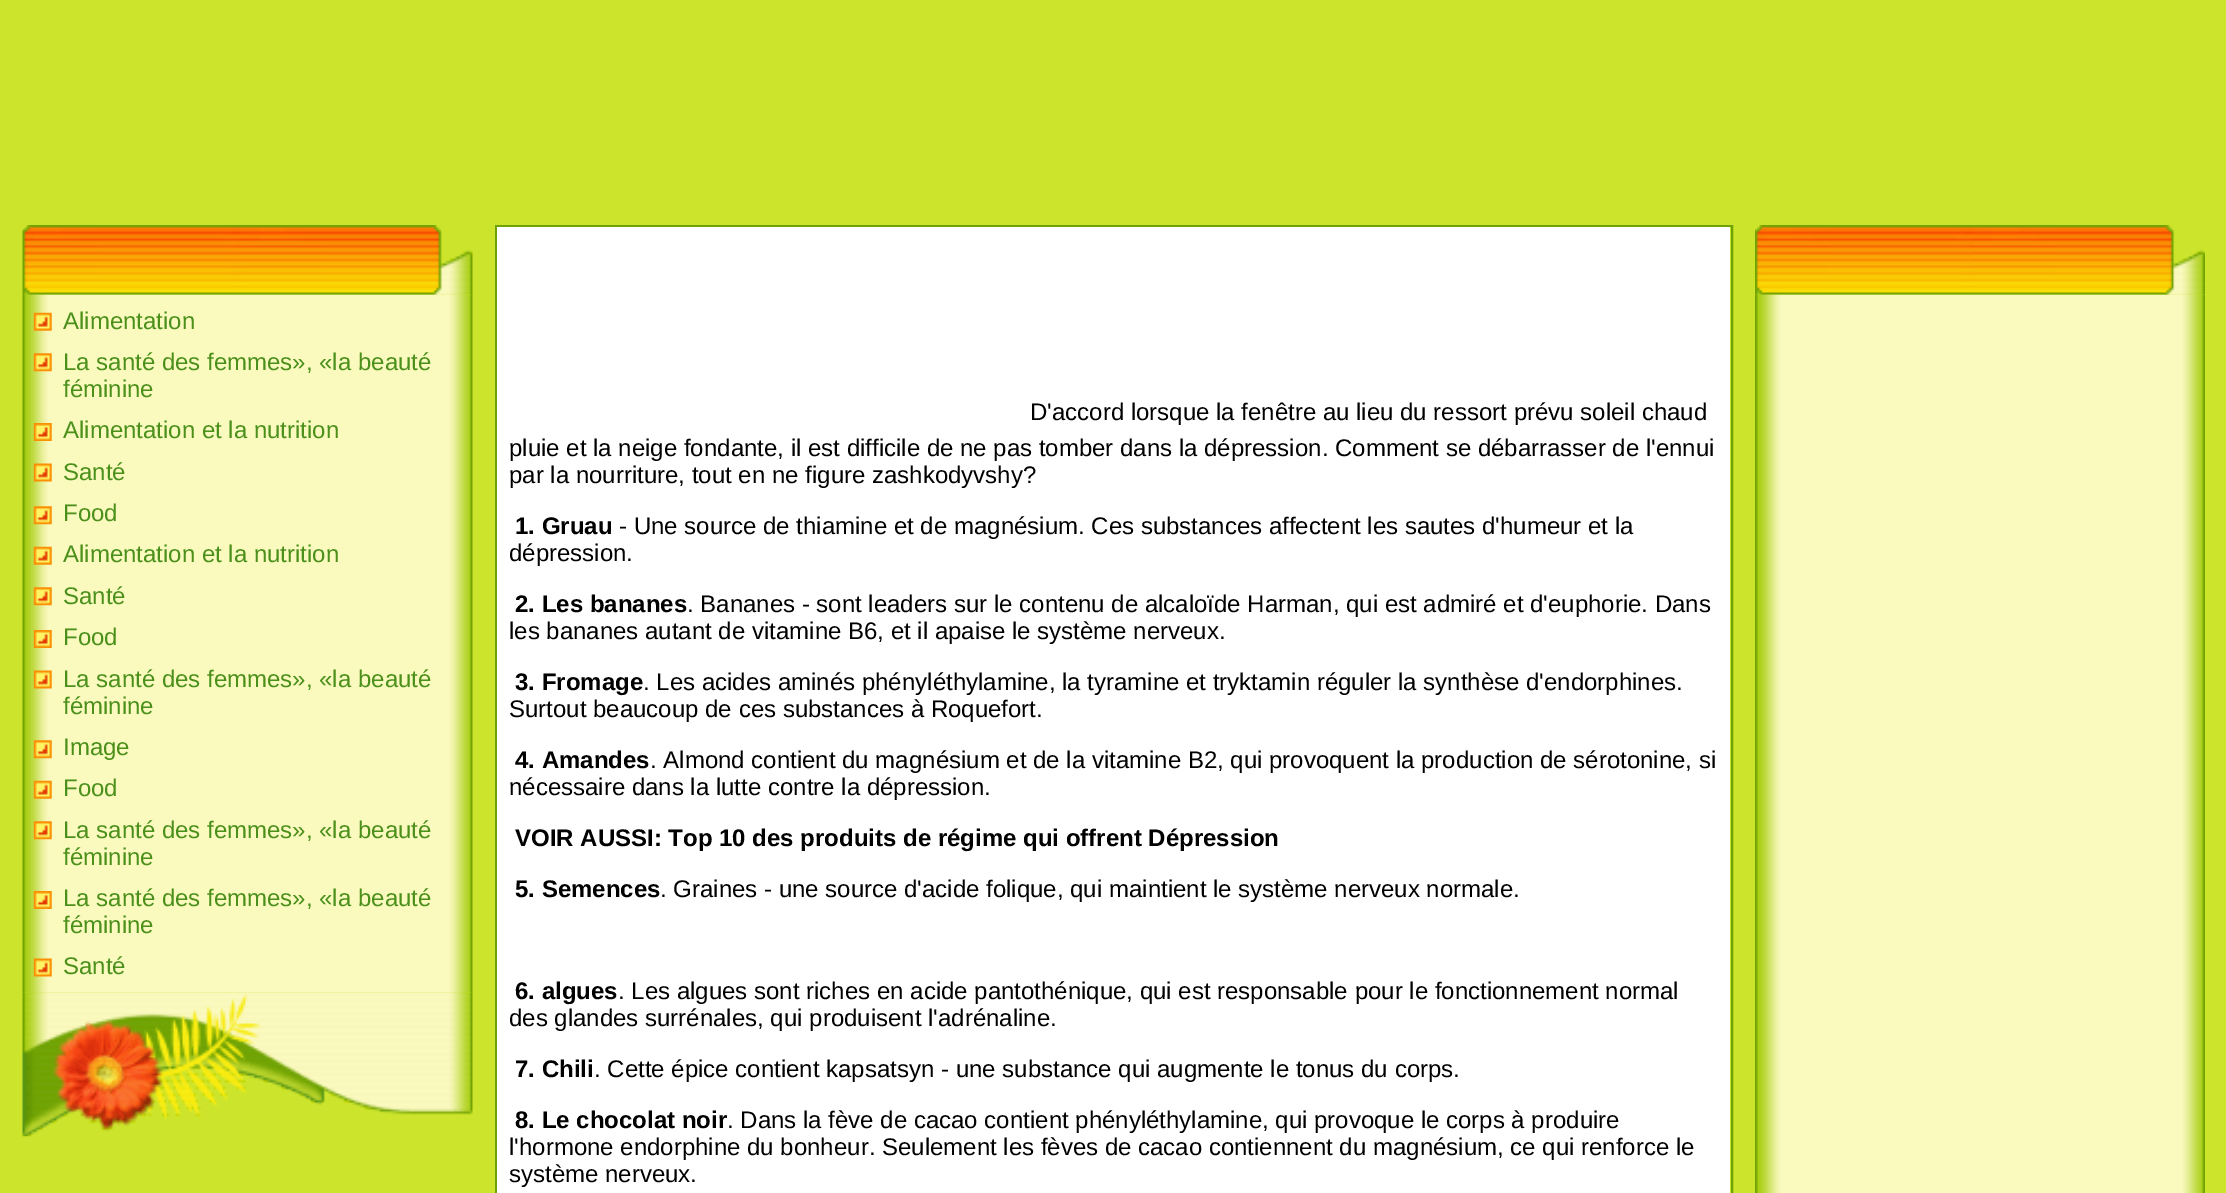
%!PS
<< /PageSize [2226 1193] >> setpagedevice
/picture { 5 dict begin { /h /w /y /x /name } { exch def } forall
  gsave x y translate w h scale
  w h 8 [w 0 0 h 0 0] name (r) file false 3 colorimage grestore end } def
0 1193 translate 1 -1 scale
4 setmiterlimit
0.8 0.894 0.173 setrgbcolor
0 0 2226 1193 rectfill
(img1.rgb) 22 225 451 70 picture
(img2.rgb) 22 294 451 699 picture
(img3.rgb) 33 312 19 19 picture
/LiberationSans-Regular [24 0 0 -24 0 0] selectfont
0.294 0.565 0.102 setrgbcolor
63 329 moveto (Alimentation) show
(img4.rgb) 33 353 19 19 picture
63 370 moveto (La santé des femmes», «la beauté) show
63 397 moveto (féminine) show
(img5.rgb) 33 423 19 18 picture
63 438 moveto (Alimentation et la nutrition) show
(img6.rgb) 33 463 19 19 picture
63 480 moveto (Santé) show
(img4.rgb) 33 506 19 19 picture
63 521 moveto (Food) show
(img3.rgb) 33 546 19 19 picture
63 562 moveto (Alimentation et la nutrition) show
(img4.rgb) 33 587 19 19 picture
63 604 moveto (Santé) show
(img5.rgb) 33 630 19 18 picture
63 645 moveto (Food) show
(img6.rgb) 33 670 19 19 picture
63 687 moveto (La santé des femmes», «la beauté) show
63 714 moveto (féminine) show
(img4.rgb) 33 740 19 19 picture
63 755 moveto (Image) show
(img3.rgb) 33 780 19 19 picture
63 796 moveto (Food) show
(img4.rgb) 33 821 19 19 picture
63 838 moveto (La santé des femmes», «la beauté) show
63 865 moveto (féminine) show
(img5.rgb) 33 891 19 18 picture
63 906 moveto (La santé des femmes», «la beauté) show
63 933 moveto (féminine) show
(img6.rgb) 33 958 19 19 picture
63 974 moveto (Santé) show
(img7.rgb) 22 992 451 145 picture
0.427 0.631 0.016 setrgbcolor
2 setlinewidth
496 226 1236 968 rectstroke
1 setgray
497 227 1233 966 rectfill
0 setgray
1030 420 moveto (D'accord lorsque la fenêtre au lieu du ressort prévu soleil chaud) show
509 456 moveto (pluie et la neige fondante, il est difficile de ne pas tomber dans la dépression. Comment se débarrasser de l'ennui) show
509 483 moveto (par la nourriture, tout en ne figure zashkodyvshy?) show
/LiberationSans-Bold [24 0 0 -24 0 0] selectfont
515 534 moveto (1. Gruau) show
/LiberationSans-Regular [24 0 0 -24 0 0] selectfont
619 534 moveto (- Une source de thiamine et de magnésium. Ces substances affectent les sautes d'humeur et la) show
509 561 moveto (dépression.) show
/LiberationSans-Bold [24 0 0 -24 0 0] selectfont
515 612 moveto (2. Les bananes) show
/LiberationSans-Regular [24 0 0 -24 0 0] selectfont
687 612 moveto (. Bananes - sont leaders sur le contenu de alcaloïde Harman, qui est admiré et d'euphorie. Dans) show
509 639 moveto (les bananes autant de vitamine B6, et il apaise le système nerveux.) show
/LiberationSans-Bold [24 0 0 -24 0 0] selectfont
515 690 moveto (3. Fromage) show
/LiberationSans-Regular [24 0 0 -24 0 0] selectfont
643 690 moveto (. Les acides aminés phényléthylamine, la tyramine et tryktamin réguler la synthèse d'endorphines.) show
509 717 moveto (Surtout beaucoup de ces substances à Roquefort.) show
/LiberationSans-Bold [24 0 0 -24 0 0] selectfont
515 768 moveto (4. Amandes) show
/LiberationSans-Regular [24 0 0 -24 0 0] selectfont
650 768 moveto (. Almond contient du magnésium et de la vitamine B2, qui provoquent la production de sérotonine, si) show
509 795 moveto (nécessaire dans la lutte contre la dépression.) show
/LiberationSans-Bold [24 0 0 -24 0 0] selectfont
515 846 moveto (VOIR AUSSI: Top 10 des produits de régime qui offrent Dépression) show
515 897 moveto (5. Semences) show
/LiberationSans-Regular [24 0 0 -24 0 0] selectfont
660 897 moveto (. Graines - une source d'acide folique, qui maintient le système nerveux normale.) show
/LiberationSans-Bold [24 0 0 -24 0 0] selectfont
515 999 moveto (6. algues) show
/LiberationSans-Regular [24 0 0 -24 0 0] selectfont
618 999 moveto (. Les algues sont riches en acide pantothénique, qui est responsable pour le fonctionnement normal) show
509 1026 moveto (des glandes surrénales, qui produisent l'adrénaline.) show
/LiberationSans-Bold [24 0 0 -24 0 0] selectfont
515 1077 moveto (7. Chili) show
/LiberationSans-Regular [24 0 0 -24 0 0] selectfont
594 1077 moveto (. Cette épice contient kapsatsyn - une substance qui augmente le tonus du corps.) show
/LiberationSans-Bold [24 0 0 -24 0 0] selectfont
515 1128 moveto (8. Le chocolat noir) show
/LiberationSans-Regular [24 0 0 -24 0 0] selectfont
727 1128 moveto (. Dans la fève de cacao contient phényléthylamine, qui provoque le corps à produire) show
509 1155 moveto (l'hormone endorphine du bonheur. Seulement les fèves de cacao contiennent du magnésium, ce qui renforce le) show
509 1182 moveto (système nerveux.) show
(img8.rgb) 1755 225 450 70 picture
(img9.rgb) 1755 294 450 899 picture
showpage
